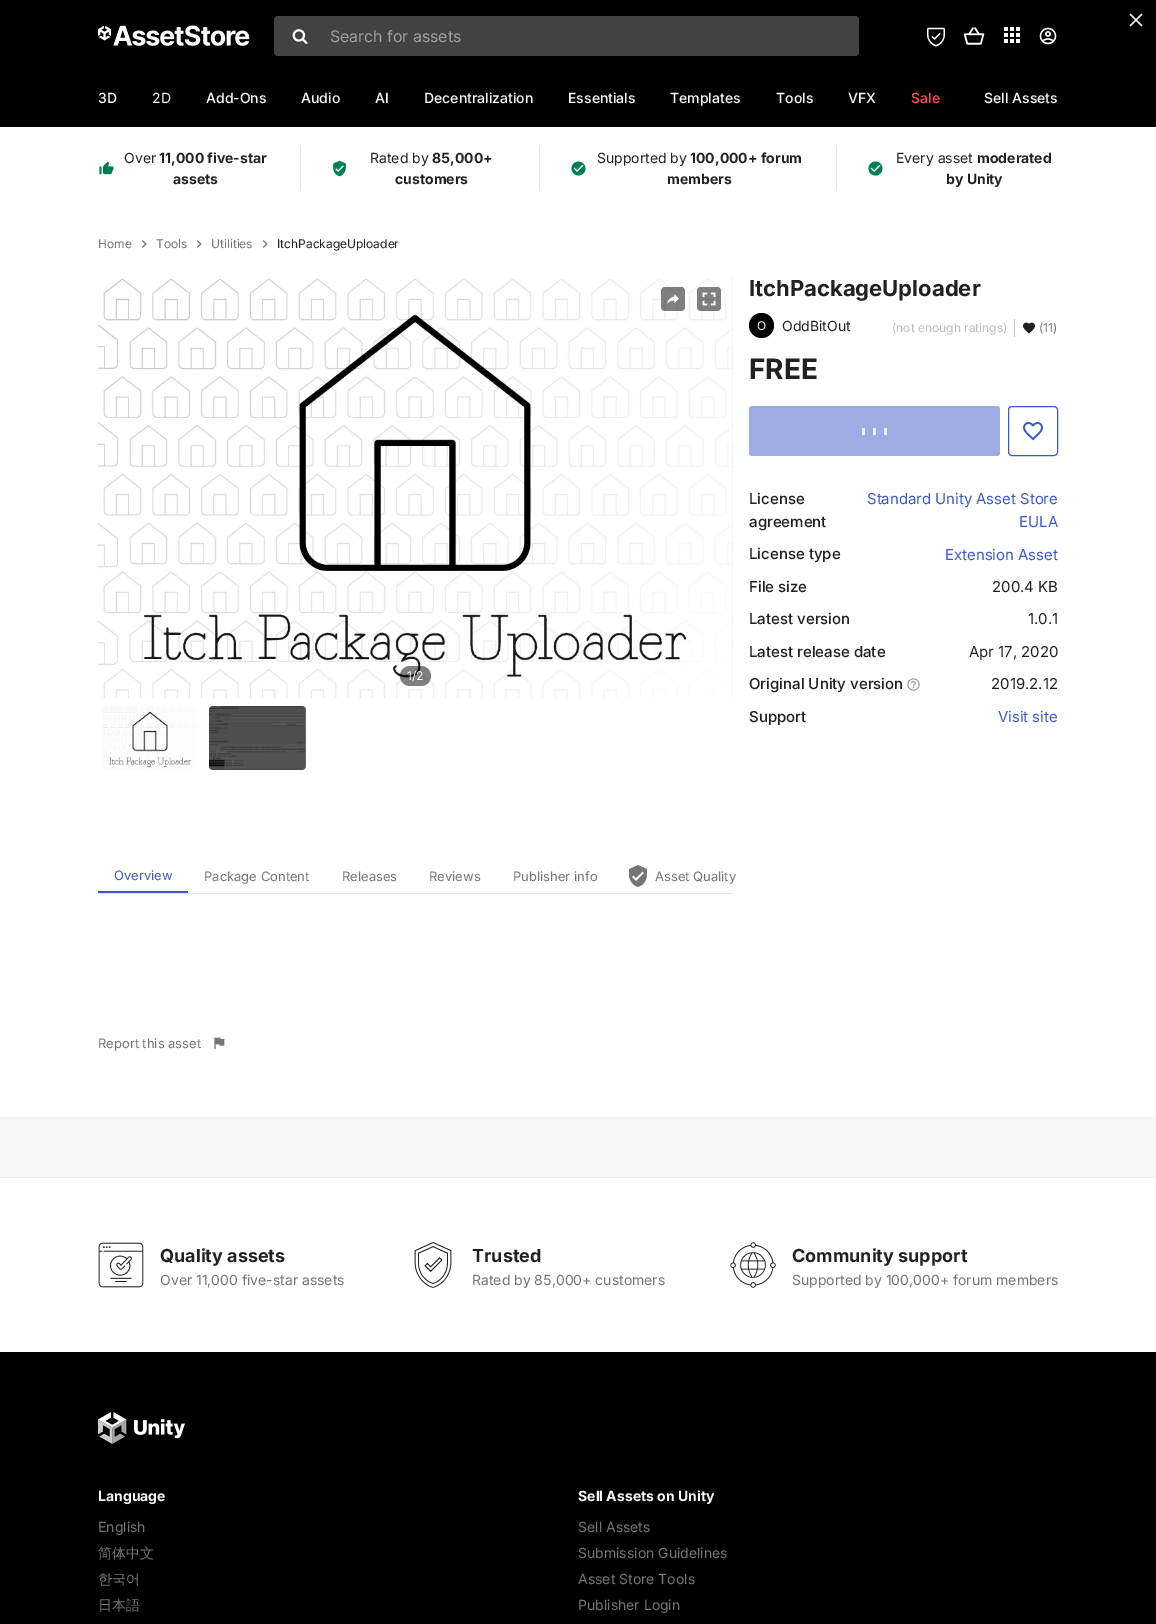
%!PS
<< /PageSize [1156 1624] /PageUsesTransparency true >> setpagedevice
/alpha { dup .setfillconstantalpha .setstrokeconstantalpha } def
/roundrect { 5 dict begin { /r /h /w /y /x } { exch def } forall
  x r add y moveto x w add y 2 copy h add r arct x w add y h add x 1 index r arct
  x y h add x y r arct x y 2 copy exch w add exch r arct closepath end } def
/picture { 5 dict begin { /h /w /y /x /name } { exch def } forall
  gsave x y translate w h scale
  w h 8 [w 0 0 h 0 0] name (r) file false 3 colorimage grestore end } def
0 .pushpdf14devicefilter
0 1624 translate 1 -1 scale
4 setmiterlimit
1 setgray
0 0 1156 1624 rectfill
0 setgray
0 0 1156 127 rectfill
(img1.rgb) 1129 13 14 14 picture
(img2.rgb) 98 25 152 21 picture
0.259 setgray
274 16 585 40 4 roundrect fill
(img3.rgb) 292 29 16 15 picture
/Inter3-Regular [16 0 0 -16 0 0] selectfont
0.62 setgray
330 42 moveto (Search for assets) show
(img4.rgb) 927 27 18 20 picture
(img5.rgb) 963 27 22 18 picture
(img6.rgb) 1004 27 16 16 picture
(img7.rgb) 1039 27 18 18 picture
/Inter-Medium [14 0 0 -14 0 0] selectfont
0.98 setgray
98 103 moveto (3D) show
/Inter-Regular [14 0 0 -14 0 0] selectfont
152 103 moveto (2D) show
/Inter-Medium [14 0 0 -14 0 0] selectfont
206 103 moveto (Add-Ons) show
301 103 moveto (Audio) show
375 103 moveto (AI) show
424 103 moveto (Decentralization) show
568 103 moveto (Essentials) show
670 103 moveto (Templates) show
776 103 moveto (Tools) show
848 103 moveto (VFX) show
1 0.314 0.314 setrgbcolor
911 103 moveto (Sale) show
0.98 setgray
984 103 moveto (Sell Assets) show
(img8.rgb) 99 161 15 14 picture
/Inter-Regular [14 0 0 -14 0 0] selectfont
0.129 setgray
124 163 moveto (Over) show
/Inter-Bold [14 0 0 -14 0 0] selectfont
159 163 moveto (11,000 five-star) show
173 184 moveto (assets) show
0.914 setgray
539 147 1 42 rectfill
300 147 1 42 rectfill
(img9.rgb) 333 160 13 17 picture
/Inter-Regular [14 0 0 -14 0 0] selectfont
0.129 setgray
370 163 moveto (Rated by) show
/Inter-Bold [14 0 0 -14 0 0] selectfont
432 163 moveto (85,000+) show
395 184 moveto (customers) show
0.914 setgray
836 147 1 42 rectfill
(img10.rgb) 571 161 15 15 picture
/Inter-Regular [14 0 0 -14 0 0] selectfont
0.129 setgray
597 163 moveto (Supported by) show
/Inter-Bold [14 0 0 -14 0 0] selectfont
690 163 moveto (100,000+ forum) show
667 184 moveto (members) show
(img10.rgb) 868 161 15 15 picture
/Inter-Regular [14 0 0 -14 0 0] selectfont
896 163 moveto (Every asset) show
/Inter-Bold [14 0 0 -14 0 0] selectfont
977 163 moveto (moderated) show
946 184 moveto (by Unity) show
/Inter-Regular [12 0 0 -12 0 0] selectfont
0.459 setgray
98 248 moveto (Home) show
(img11.rgb) 141 240 6 8 picture
156 248 moveto (Tools) show
(img11.rgb) 196 240 6 8 picture
211 248 moveto (Utilities) show
(img11.rgb) 262 240 6 8 picture
0.129 setgray
277 248 moveto (ItchPackageUploader) show
/Inter-Bold [22 0 0 -22 0 0] selectfont
749 296 moveto (ItchPackageUploader) show
0 setgray
newpath 761.5 325.5 12.5 0 360 arc closepath fill
/Inter-Regular [12 0 0 -12 0 0] selectfont
0.98 setgray
757 330 moveto (O) show
/Inter-Regular [14 0 0 -14 0 0] selectfont
0.129 setgray
782 331 moveto (OddBitOut) show
/Inter-Regular [12 0 0 -12 0 0] selectfont
0.741 setgray
892 332 moveto (\(not enough ratings\)) show
0.761 setgray
1014 319 1 18 rectfill
(img12.rgb) 1023 322 12 12 picture
0.459 setgray
1039 332 moveto (\(11\)) show
/Inter-Bold [28 0 0 -28 0 0] selectfont
0.129 setgray
749 379 moveto (FREE) show
0.616 0.678 0.89 setrgbcolor
749 406 251 50 3 roundrect fill
0.922 0.937 0.976 setrgbcolor
862 428 3 7 rectfill
873 428 3 7 rectfill
884 428 3 7 rectfill
0.227 0.357 0.78 setrgbcolor
1008.5 406.5 49 49 3.5 roundrect stroke
(img13.rgb) 1023 422 20 19 picture
/Inter-Medium [15 0 0 -15 0 0] selectfont
0.129 setgray
749 504 moveto (License) show
749 527 moveto (agreement) show
/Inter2-Regular [15 0 0 -15 0 0] selectfont
0.227 0.357 0.78 setrgbcolor
867 504 moveto (Standard Unity Asset Store) show
1019 527 moveto (EULA) show
/Inter-Medium [15 0 0 -15 0 0] selectfont
0.129 setgray
749 559 moveto (License type) show
/Inter2-Regular [15 0 0 -15 0 0] selectfont
0.227 0.357 0.78 setrgbcolor
945 560 moveto (Extension Asset) show
/Inter-Medium [15 0 0 -15 0 0] selectfont
0.129 setgray
749 592 moveto (File size) show
/Inter2-Regular [15 0 0 -15 0 0] selectfont
992 592 moveto (200.4 KB) show
/Inter-Medium [15 0 0 -15 0 0] selectfont
749 624 moveto (Latest version) show
/Inter2-Regular [15 0 0 -15 0 0] selectfont
1028 624 moveto (1.0.1) show
/Inter-Medium [15 0 0 -15 0 0] selectfont
749 657 moveto (Latest release date) show
/Inter2-Regular [15 0 0 -15 0 0] selectfont
969 657 moveto (Apr 17, 2020) show
/Inter-Medium [15 0 0 -15 0 0] selectfont
749 689 moveto (Original Unity version) show
(img14.rgb) 907 678 13 13 picture
/Inter2-Regular [15 0 0 -15 0 0] selectfont
991 689 moveto (2019.2.12) show
/Inter-Medium [15 0 0 -15 0 0] selectfont
749 722 moveto (Support) show
/Inter2-Regular [15 0 0 -15 0 0] selectfont
0.227 0.357 0.78 setrgbcolor
998 722 moveto (Visit site) show
0.961 setgray
98 275 635 423 4 roundrect fill
(img17.rgb) 98 275 634 423 picture
0.5 alpha
0 setgray
661 287 24 24 4 roundrect fill
1 alpha
(img15.rgb) 667 294 12 10 picture
0.5 alpha
697 287 24 24 4 roundrect fill
1 alpha
(img16.rgb) 702 292 14 14 picture
0.5 alpha
400 666 31 20 10 roundrect fill
/Inter-Regular [12 0 0 -12 0 0] selectfont
1 alpha
0.98 setgray
407 680 moveto (1/2) show
(img18.rgb) 102 706 95 64 picture
1 setgray
101.5 705.5 97 65 3.5 roundrect stroke
(img19.rgb) 209 706 96 64 picture
0.6 alpha
0 setgray
209 706 97 64 4 roundrect fill
1 alpha
0.894 setgray
98 893 635 1 rectfill
0.227 0.357 0.78 setrgbcolor
98 891 90 2 rectfill
/Inter-Regular [13 0 0 -13 0 0] selectfont
114 880 moveto (Overview) show
0.459 setgray
204 881 moveto (Package Content) show
342 881 moveto (Releases) show
429 881 moveto (Reviews) show
513 881 moveto (Publisher info) show
(img20.rgb) 629 865 18 22 picture
655 881 moveto (Asset Quality) show
98 1048 moveto (Report this asset) show
(img21.rgb) 214 1037 11 12 picture
0.961 setgray
0 1117 1156 60 rectfill
0.925 0.937 0.945 setrgbcolor
0 1177 1156 1 rectfill
(img22.rgb) 98 1242 46 46 picture
/Inter-Bold [18 0 0 -18 0 0] selectfont
0.129 setgray
160 1262 moveto (Quality assets) show
/Inter-Regular [14 0 0 -14 0 0] selectfont
0.459 setgray
160 1285 moveto (Over 11,000 five-star assets) show
(img23.rgb) 414 1242 38 46 picture
/Inter-Bold [18 0 0 -18 0 0] selectfont
0.129 setgray
472 1262 moveto (Trusted) show
/Inter-Regular [14 0 0 -14 0 0] selectfont
0.459 setgray
472 1285 moveto (Rated by 85,000+ customers) show
(img24.rgb) 730 1242 46 46 picture
/Inter-Bold [18 0 0 -18 0 0] selectfont
0.129 setgray
792 1262 moveto (Community support) show
/Inter-Regular [14 0 0 -14 0 0] selectfont
0.459 setgray
792 1285 moveto (Supported by 100,000+ forum members) show
0 setgray
0 1352 1156 272 rectfill
(img25.rgb) 98 1412 87 32 picture
/Inter-Bold [14 0 0 -14 0 0] selectfont
0.98 setgray
98 1501 moveto (Language) show
/Inter-Regular [14 0 0 -14 0 0] selectfont
0.459 setgray
98 1532 moveto (English) show
/WenQuanYiZenHei-Medium [14 0 0 -14 0 0] selectfont
98 1558 moveto (简体中文) show
98 1584 moveto (한국어) show
98 1610 moveto (日本語) show
/Inter-Bold [14 0 0 -14 0 0] selectfont
0.98 setgray
578 1501 moveto (Sell Assets on Unity) show
/Inter-Regular [14 0 0 -14 0 0] selectfont
0.459 setgray
578 1532 moveto (Sell Assets) show
578 1558 moveto (Submission Guidelines) show
578 1584 moveto (Asset Store Tools) show
578 1610 moveto (Publisher Login) show
.poppdf14devicefilter showpage
